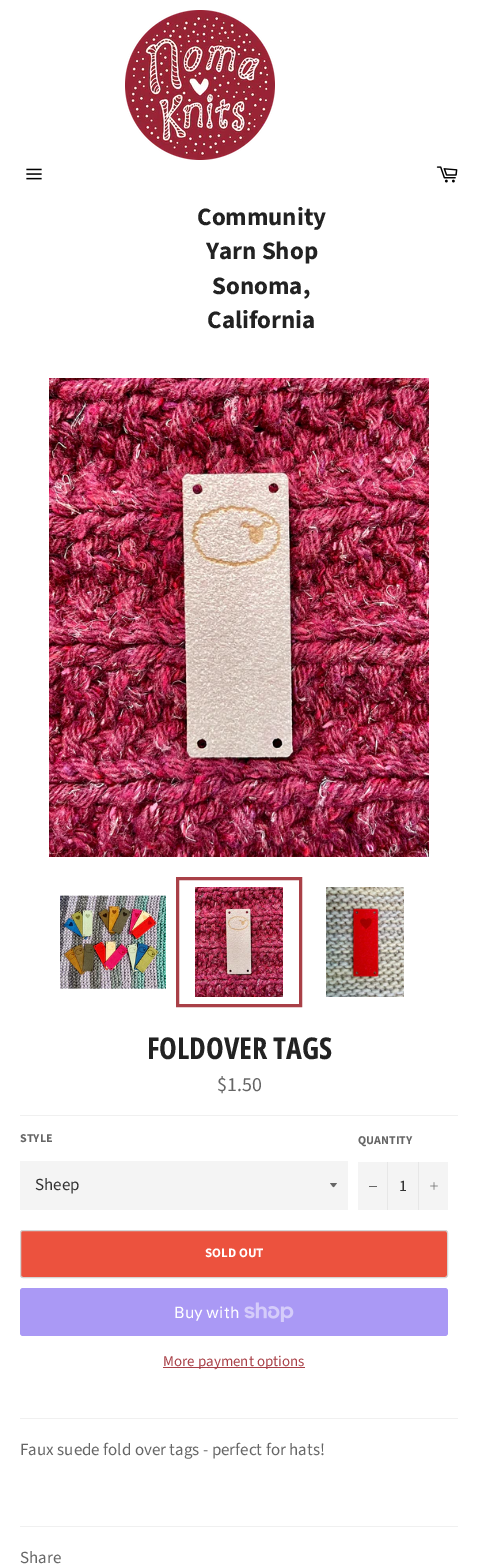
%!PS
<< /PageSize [478 1568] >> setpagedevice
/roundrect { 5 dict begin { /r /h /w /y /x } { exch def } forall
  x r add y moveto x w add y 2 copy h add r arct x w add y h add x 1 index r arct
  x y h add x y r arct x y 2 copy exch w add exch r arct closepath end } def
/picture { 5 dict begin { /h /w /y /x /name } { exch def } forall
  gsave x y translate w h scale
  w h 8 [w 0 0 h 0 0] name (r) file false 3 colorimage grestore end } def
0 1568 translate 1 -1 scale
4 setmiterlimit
1 setgray
0 0 478 1568 rectfill
(img1.rgb) 26 168 16 12 picture
(img2.rgb) 436 166 22 17 picture
(img3.rgb) 125 10 150 150 picture
/SourceSansPro-Bold [25 0 0 -25 0 0] selectfont
0.133 setgray
197 225 moveto (Community) show
206 259 moveto (Yarn Shop) show
212 294 moveto (Sonoma,) show
207 328 moveto (California) show
(img4.rgb) 49 378 380 479 picture
(img5.rgb) 60 895 106 94 picture
(img6.rgb) 195 887 88 110 picture
0.663 0.251 0.278 setrgbcolor
3 setlinewidth
177.5 878.5 123 127 rectstroke
(img7.rgb) 326 887 78 110 picture
/OpenSansCondensed-Bold [30 0 0 -30 0 0] selectfont
0.133 setgray
147 1059 moveto (FOLDOVER TAGS) show
/SourceSansPro-Regular [20 0 0 -20 0 0] selectfont
0.4 setgray
217 1091 moveto ($1.50) show
0.941 setgray
20 1115 438 1 rectfill
/SourceSansPro-Bold [12 0 0 -12 0 0] selectfont
0.4 setgray
20 1142 moveto (STYLE) show
0.957 setgray
20 1161 328 49 rectfill
0.4 setgray
newpath 330 1183 moveto 334.5 1188.5 332.5 1188.5 337 1183 curveto closepath fill
/SourceSansPro-Regular [17 0 0 -17 0 0] selectfont
0.2 setgray
35 1190 moveto (Sheep) show
/SourceSansPro-Bold [12 0 0 -12 0 0] selectfont
0.4 setgray
358 1144 moveto (QUANTITY) show
0.957 setgray
358 1162 90 48 rectfill
0.906 setgray
387 1162 1 48 rectfill
0.4 setgray
369 1186 8 1 rectfill
/SourceSansPro-Regular [16 0 0 -16 0 0] selectfont
0.2 setgray
399 1191 moveto (1) show
0.906 setgray
418 1162 1 48 rectfill
(img8.rgb) 430 1182 8 8 picture
0.925 0.322 0.243 setrgbcolor
20.5 1230.5 427 47 2.5 roundrect gsave fill grestore
0.835 setgray
1 setlinewidth
stroke
/SourceSansPro-Bold [13 0 0 -13 0 0] selectfont
1 setgray
205 1257 moveto (SOLD OUT) show
0.667 0.6 0.961 setrgbcolor
20 1288 428 48 3 roundrect fill
/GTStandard-Regular [16 0 0 -16 0 0] selectfont
1 setgray
174 1318 moveto (Buy with) show
(img9.rgb) 244 1302 50 20 picture
0.663 0.251 0.278 setrgbcolor
163 1367 142 1 rectfill
/SourceSansPro-Regular [15 0 0 -15 0 0] selectfont
163 1366 moveto (More payment options) show
0.941 setgray
20 1418 438 1 rectfill
/SourceSansPro-Regular [17 0 0 -17 0 0] selectfont
0.4 setgray
20 1455 moveto (Faux suede fold over tags - perfect for hats!) show
0.941 setgray
20 1526 438 1 rectfill
0.4 setgray
20 1563 moveto (Share) show
showpage
